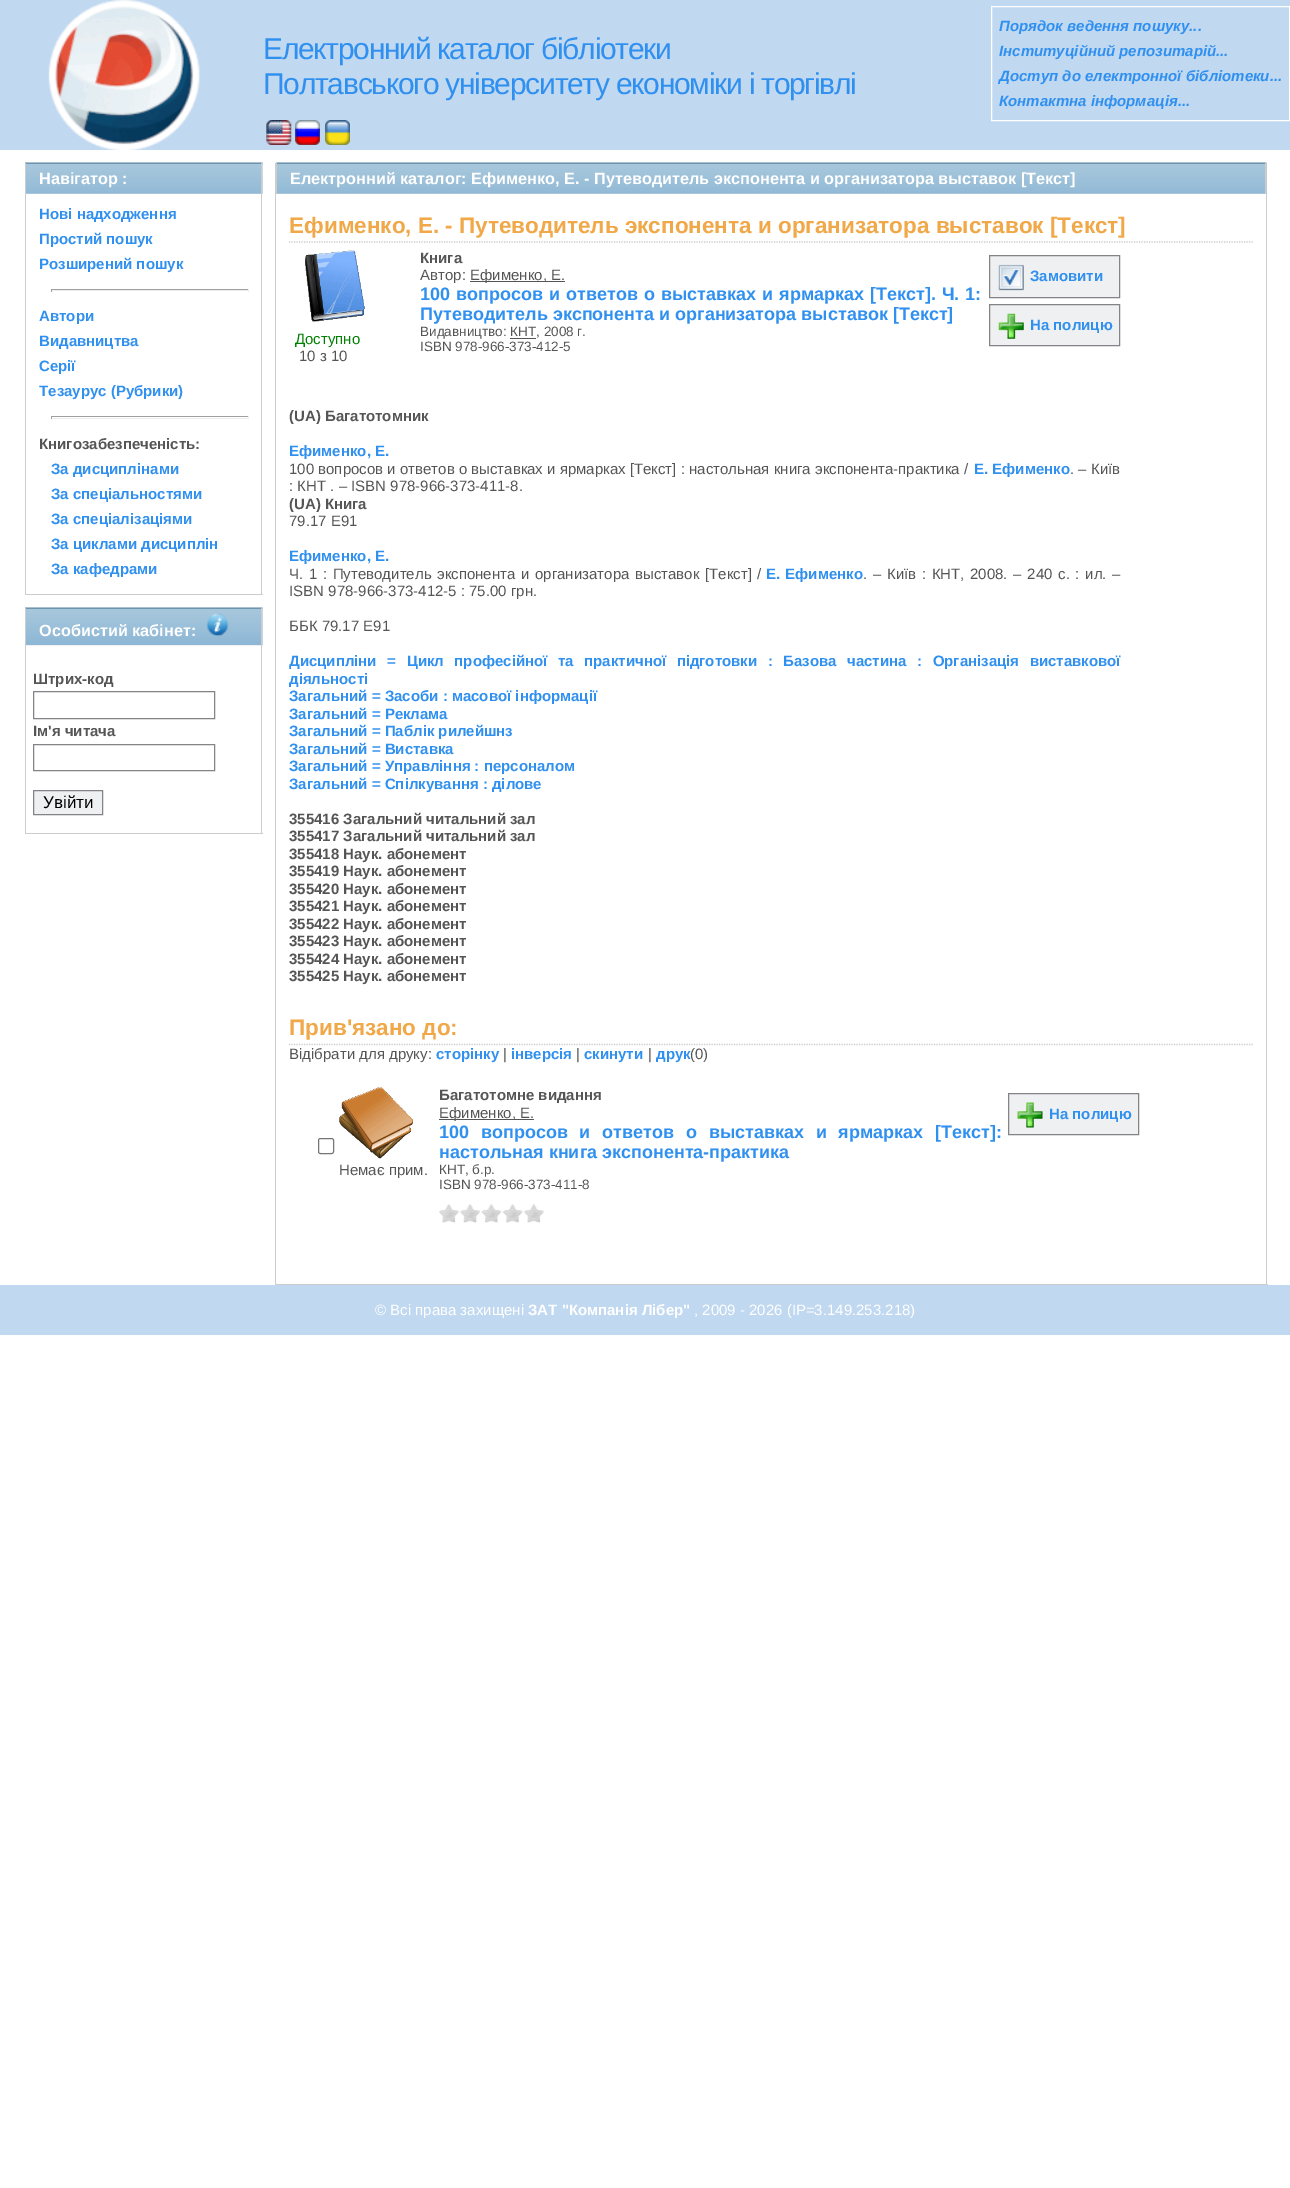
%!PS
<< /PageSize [1290 2188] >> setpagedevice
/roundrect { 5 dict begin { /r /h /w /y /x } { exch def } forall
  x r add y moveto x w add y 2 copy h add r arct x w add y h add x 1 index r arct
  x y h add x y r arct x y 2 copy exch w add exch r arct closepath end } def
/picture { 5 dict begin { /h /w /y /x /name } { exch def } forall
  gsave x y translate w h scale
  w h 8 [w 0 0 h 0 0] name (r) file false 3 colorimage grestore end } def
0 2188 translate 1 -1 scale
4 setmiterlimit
1 setgray
0 0 1290 2188 rectfill
0.753 0.847 0.941 setrgbcolor
0 0 1290 150 rectfill
(img1.rgb) 48 0 152 150 picture
/LiberationSans-Regular [30 0 0 -30 0 0] selectfont
0.188 0.565 0.941 setrgbcolor
263 59 moveto -1.25 0 (Електронний каталог бібліотеки) ashow
263 94 moveto -1.25 0 (Полтавського університету економіки і торгівлі) ashow
(img2.rgb) 266 120 26 25 picture
(img3.rgb) 295 120 25 25 picture
(img4.rgb) 325 120 25 25 picture
1 setgray
991.5 6.5 298 114 rectstroke
/LiberationSans-BoldItalic [15 0 0 -15 0 0] selectfont
0.188 0.565 0.941 setrgbcolor
999 31 moveto (Порядок ведення пошуку...) show
999 56 moveto (Інституційний репозитарій...) show
999 81 moveto (Доступ до електронної бібліотеки...) show
999 106 moveto (Контактна інформація...) show
0.933 0.941 0.945 setrgbcolor
26 163 237 31 rectfill
(img5.rgb) 25 162 238 32 picture
0.8 setgray
261 163 1 432 rectfill
25 163 1 31 rectfill
/LiberationSans-Bold [16.25 0 0 -16.25 0 0] selectfont
1 setgray
39 184 moveto (Навігатор :) show
0.8 setgray
25 594 238 1 rectfill
25 194 1 401 rectfill
/LiberationSans-Bold [15 0 0 -15 0 0] selectfont
0.188 0.565 0.941 setrgbcolor
39 219 moveto (Нові надходження) show
39 244 moveto (Простий пошук) show
39 269 moveto (Розширений пошук) show
0.624 setgray
51 289 198 1 rectfill
0.933 setgray
248 289 1 3 rectfill
51 290 198 1 rectfill
0.624 setgray
51 289 1 3 rectfill
0.188 0.565 0.941 setrgbcolor
39 321 moveto (Автори) show
39 346 moveto (Видавництва) show
39 371 moveto (Серії) show
39 396 moveto (Тезаурус \(Рубрики\)) show
0.624 setgray
51 416 198 1 rectfill
0.933 setgray
248 416 1 3 rectfill
51 418 198 1 rectfill
0.624 setgray
51 416 1 3 rectfill
0.333 setgray
39 449 moveto (Книгозабезпеченість:) show
0.188 0.565 0.941 setrgbcolor
51 474 moveto (За дисциплінами) show
51 499 moveto (За спеціальностями) show
51 524 moveto (За спеціалізаціями) show
51 549 moveto (За циклами дисциплін) show
51 574 moveto (За кафедрами) show
0.933 0.941 0.945 setrgbcolor
26 608 237 38 rectfill
(img6.rgb) 25 607 238 38 picture
0.8 setgray
261 608 1 226 rectfill
25 608 1 38 rectfill
/LiberationSans-Bold [16.25 0 0 -16.25 0 0] selectfont
1 setgray
39 636 moveto (Особистий кабінет:) show
(img7.rgb) 206 613 23 24 picture
0.8 setgray
25 833 238 1 rectfill
25 646 1 188 rectfill
/LiberationSans-Bold [15 0 0 -15 0 0] selectfont
0.333 setgray
33 684 moveto (Штрих-код) show
0.518 0.514 0.533 setrgbcolor
33.5 691.5 181 27 rectstroke
0.333 setgray
33 736 moveto (Ім'я читача) show
0.518 0.514 0.533 setrgbcolor
33.5 744.5 181 26 rectstroke
0.933 0.941 0.945 setrgbcolor
newpath 33.5 790.5 moveto 102.5 790.5 lineto 102.5 814.5 lineto 33.5 814.5 lineto closepath gsave fill grestore
0.518 0.514 0.533 setrgbcolor
stroke
/LiberationSans-Regular [17 0 0 -17 0 0] selectfont
0 setgray
43 808 moveto (Увійти) show
0.8 setgray
1266 163 1 1122 rectfill
275 1284 993 1 rectfill
275 163 1 1122 rectfill
(img8.rgb) 276 162 991 32 picture
1265 163 1 31 rectfill
276 163 1 31 rectfill
/LiberationSans-Bold [16.25 0 0 -16.25 0 0] selectfont
1 setgray
290 184 moveto (Електронний каталог: Ефименко, Е. - Путеводитель экспонента и организатора выставок [Текст]) show
0.8 setgray
1.2 setlinewidth
[1.25 1.25] 0 setdash
newpath 289 242 moveto 1254 242 lineto stroke
/LiberationSans-Bold [22.5 0 0 -22.5 0 0] selectfont
0.941 0.659 0.282 setrgbcolor
289 233 moveto (Ефименко, Е. - Путеводитель экспонента и организатора выставок [Текст]) show
/LiberationSans-Bold [15 0 0 -15 0 0] selectfont
0.333 setgray
420 263 moveto (Книга) show
/LiberationSans-Regular [15 0 0 -15 0 0] selectfont
420 280 moveto (Автор:) show
470 281 95 1 rectfill
470 280 moveto (Ефименко, Е.) show
/LiberationSans-Bold [18 0 0 -18 0 0] selectfont
0.188 0.565 0.941 setrgbcolor
420 300 moveto 1 0 32 (100 вопросов и ответов о выставках и ярмарках [Текст]. Ч. 1:) widthshow
420 320 moveto (Путеводитель экспонента и организатора выставок [Текст]) show
/LiberationSans-Regular [13.5 0 0 -13.5 0 0] selectfont
0.333 setgray
420 336 moveto (Видавництво: КНТ, 2008 г.) show
510 338 26 1 rectfill
420 351 moveto (ISBN 978-966-373-412-5) show
0.933 0.941 0.945 setrgbcolor
newpath 989.5 255.5 moveto 1119.5 255.5 lineto 1119.5 297.5 lineto 989.5 297.5 lineto closepath gsave fill grestore
0.518 0.514 0.533 setrgbcolor
1 setlinewidth
[] 0 setdash
stroke
(img9.rgb) 998 264 26 27 picture
/LiberationSans-Bold [15 0 0 -15 0 0] selectfont
0.188 0.565 0.941 setrgbcolor
1030 281 moveto (Замовити) show
0.933 0.941 0.945 setrgbcolor
newpath 989.5 304.5 moveto 1119.5 304.5 lineto 1119.5 345.5 lineto 989.5 345.5 lineto closepath gsave fill grestore
0.518 0.514 0.533 setrgbcolor
stroke
(img10.rgb) 998 313 26 26 picture
0.188 0.565 0.941 setrgbcolor
1030 330 moveto (На полицю) show
(img11.rgb) 305 250 60 72 picture
/LiberationSans-Regular [15 0 0 -15 0 0] selectfont
0 0.502 0 setrgbcolor
295 344 moveto (Доступно) show
0.333 setgray
299 361 moveto (10 з 10) show
/LiberationSans-Bold [15 0 0 -15 0 0] selectfont
289 421 moveto (\(UA\) Багатотомник) show
0.188 0.565 0.941 setrgbcolor
289 456 moveto (Ефименко, Е.) show
/LiberationSans-Regular [15 0 0 -15 0 0] selectfont
0.333 setgray
289 474 moveto (100 вопросов и ответов о выставках и ярмарках [Текст] : настольная книга экспонента-практика /) show
/LiberationSans-Bold [15 0 0 -15 0 0] selectfont
0.188 0.565 0.941 setrgbcolor
974 474 moveto (Е. Ефименко) show
/LiberationSans-Regular [15 0 0 -15 0 0] selectfont
0.333 setgray
1070 474 moveto (. – Київ) show
289 491 moveto (: КНТ . – ISBN 978-966-373-411-8.) show
/LiberationSans-Bold [15 0 0 -15 0 0] selectfont
289 509 moveto (\(UA\) Книга) show
/LiberationSans-Regular [15 0 0 -15 0 0] selectfont
289 526 moveto (79.17 Е91) show
/LiberationSans-Bold [15 0 0 -15 0 0] selectfont
0.188 0.565 0.941 setrgbcolor
289 561 moveto (Ефименко, Е.) show
/LiberationSans-Regular [15 0 0 -15 0 0] selectfont
0.333 setgray
289 579 moveto 1.5 0 32 (Ч. 1 : Путеводитель экспонента и организатора выставок [Текст] /) widthshow
/LiberationSans-Bold [15 0 0 -15 0 0] selectfont
0.188 0.565 0.941 setrgbcolor
766 579 moveto 1 0 32 (Е. Ефименко) widthshow
/LiberationSans-Regular [15 0 0 -15 0 0] selectfont
0.333 setgray
863 579 moveto 1.5 0 32 (. – Київ : КНТ, 2008. – 240 с. : ил. –) widthshow
289 596 moveto (ISBN 978-966-373-412-5 : 75.00 грн.) show
289 631 moveto (ББК 79.17 Е91) show
/LiberationSans-Bold [15 0 0 -15 0 0] selectfont
0.188 0.565 0.941 setrgbcolor
289 666 moveto 6.4 0 32 (Дисципліни = Цикл професійної та практичної підготовки : Базова частина : Організація виставкової) widthshow
289 684 moveto (діяльності) show
289 701 moveto (Загальний = Засоби : масової інформації) show
289 719 moveto (Загальний = Реклама) show
289 736 moveto (Загальний = Паблік рилейшнз) show
289 754 moveto (Загальний = Виставка) show
289 771 moveto (Загальний = Управління : персоналом) show
289 789 moveto (Загальний = Спілкування : ділове) show
0.333 setgray
289 824 moveto (355416 Загальний читальний зал) show
289 841 moveto (355417 Загальний читальний зал) show
289 859 moveto (355418 Наук. абонемент) show
289 876 moveto (355419 Наук. абонемент) show
289 894 moveto (355420 Наук. абонемент) show
289 911 moveto (355421 Наук. абонемент) show
289 929 moveto (355422 Наук. абонемент) show
289 946 moveto (355423 Наук. абонемент) show
289 964 moveto (355424 Наук. абонемент) show
289 981 moveto (355425 Наук. абонемент) show
0.8 setgray
1.2 setlinewidth
[1.25 1.25] 0 setdash
newpath 289 1044.5 moveto 1254 1044.5 lineto stroke
/LiberationSans-Bold [22.5 0 0 -22.5 0 0] selectfont
0.941 0.659 0.282 setrgbcolor
289 1035 moveto (Прив'язано до:) show
/LiberationSans-Regular [15 0 0 -15 0 0] selectfont
0.333 setgray
289 1059 moveto (Відібрати для друку:) show
/LiberationSans-Bold [15 0 0 -15 0 0] selectfont
0.188 0.565 0.941 setrgbcolor
436 1059 moveto (сторінку) show
/LiberationSans-Regular [15 0 0 -15 0 0] selectfont
0.333 setgray
503 1059 moveto (|) show
/LiberationSans-Bold [15 0 0 -15 0 0] selectfont
0.188 0.565 0.941 setrgbcolor
511 1059 moveto (інверсія) show
/LiberationSans-Regular [15 0 0 -15 0 0] selectfont
0.333 setgray
576 1059 moveto (|) show
/LiberationSans-Bold [15 0 0 -15 0 0] selectfont
0.188 0.565 0.941 setrgbcolor
584 1059 moveto (скинути) show
/LiberationSans-Regular [15 0 0 -15 0 0] selectfont
0.333 setgray
648 1059 moveto (|) show
/LiberationSans-Bold [15 0 0 -15 0 0] selectfont
0.188 0.565 0.941 setrgbcolor
656 1059 moveto (друк) show
/LiberationSans-Regular [15 0 0 -15 0 0] selectfont
0.333 setgray
690 1059 moveto (\(0\)) show
/LiberationSans-Bold [15 0 0 -15 0 0] selectfont
439 1100 moveto (Багатотомне видання) show
439 1119 95 1 rectfill
/LiberationSans-Regular [15 0 0 -15 0 0] selectfont
439 1118 moveto (Ефименко, Е.) show
/LiberationSans-Bold [18 0 0 -18 0 0] selectfont
0.188 0.565 0.941 setrgbcolor
439 1138 moveto 6.75 0 32 (100 вопросов и ответов о выставках и ярмарках [Текст]:) widthshow
439 1158 moveto (настольная книга экспонента-практика) show
/LiberationSans-Regular [13.5 0 0 -13.5 0 0] selectfont
0.333 setgray
439 1174 moveto (КНТ, б.р.) show
439 1189 moveto (ISBN 978-966-373-411-8) show
(img12.rgb) 439 1204 20 19 picture
(img13.rgb) 460 1204 20 19 picture
(img14.rgb) 481 1204 21 19 picture
(img15.rgb) 502 1204 21 19 picture
(img16.rgb) 524 1204 20 19 picture
0.933 0.941 0.945 setrgbcolor
newpath 1008.5 1093.5 moveto 1138.5 1093.5 lineto 1138.5 1134.5 lineto 1008.5 1134.5 lineto closepath gsave fill grestore
0.518 0.514 0.533 setrgbcolor
1 setlinewidth
[] 0 setdash
stroke
(img17.rgb) 1017 1102 26 26 picture
/LiberationSans-Bold [15 0 0 -15 0 0] selectfont
0.188 0.565 0.941 setrgbcolor
1049 1119 moveto (На полицю) show
0.463 setgray
318.5 1138.5 15 15 2 roundrect stroke
(img18.rgb) 339 1087 74 72 picture
/LiberationSans-Regular [15 0 0 -15 0 0] selectfont
0.333 setgray
339 1175 moveto (Немає прим.) show
0.753 0.847 0.941 setrgbcolor
0 1285 1290 50 rectfill
1 setgray
375 1315 moveto (© Всі права захищені) show
/LiberationSans-Bold [15 0 0 -15 0 0] selectfont
528 1315 moveto (ЗАТ "Компанія Лібер") show
/LiberationSans-Regular [15 0 0 -15 0 0] selectfont
694 1315 moveto (, 2009 - 2026 \(IP=3.149.253.218\)) show
showpage
